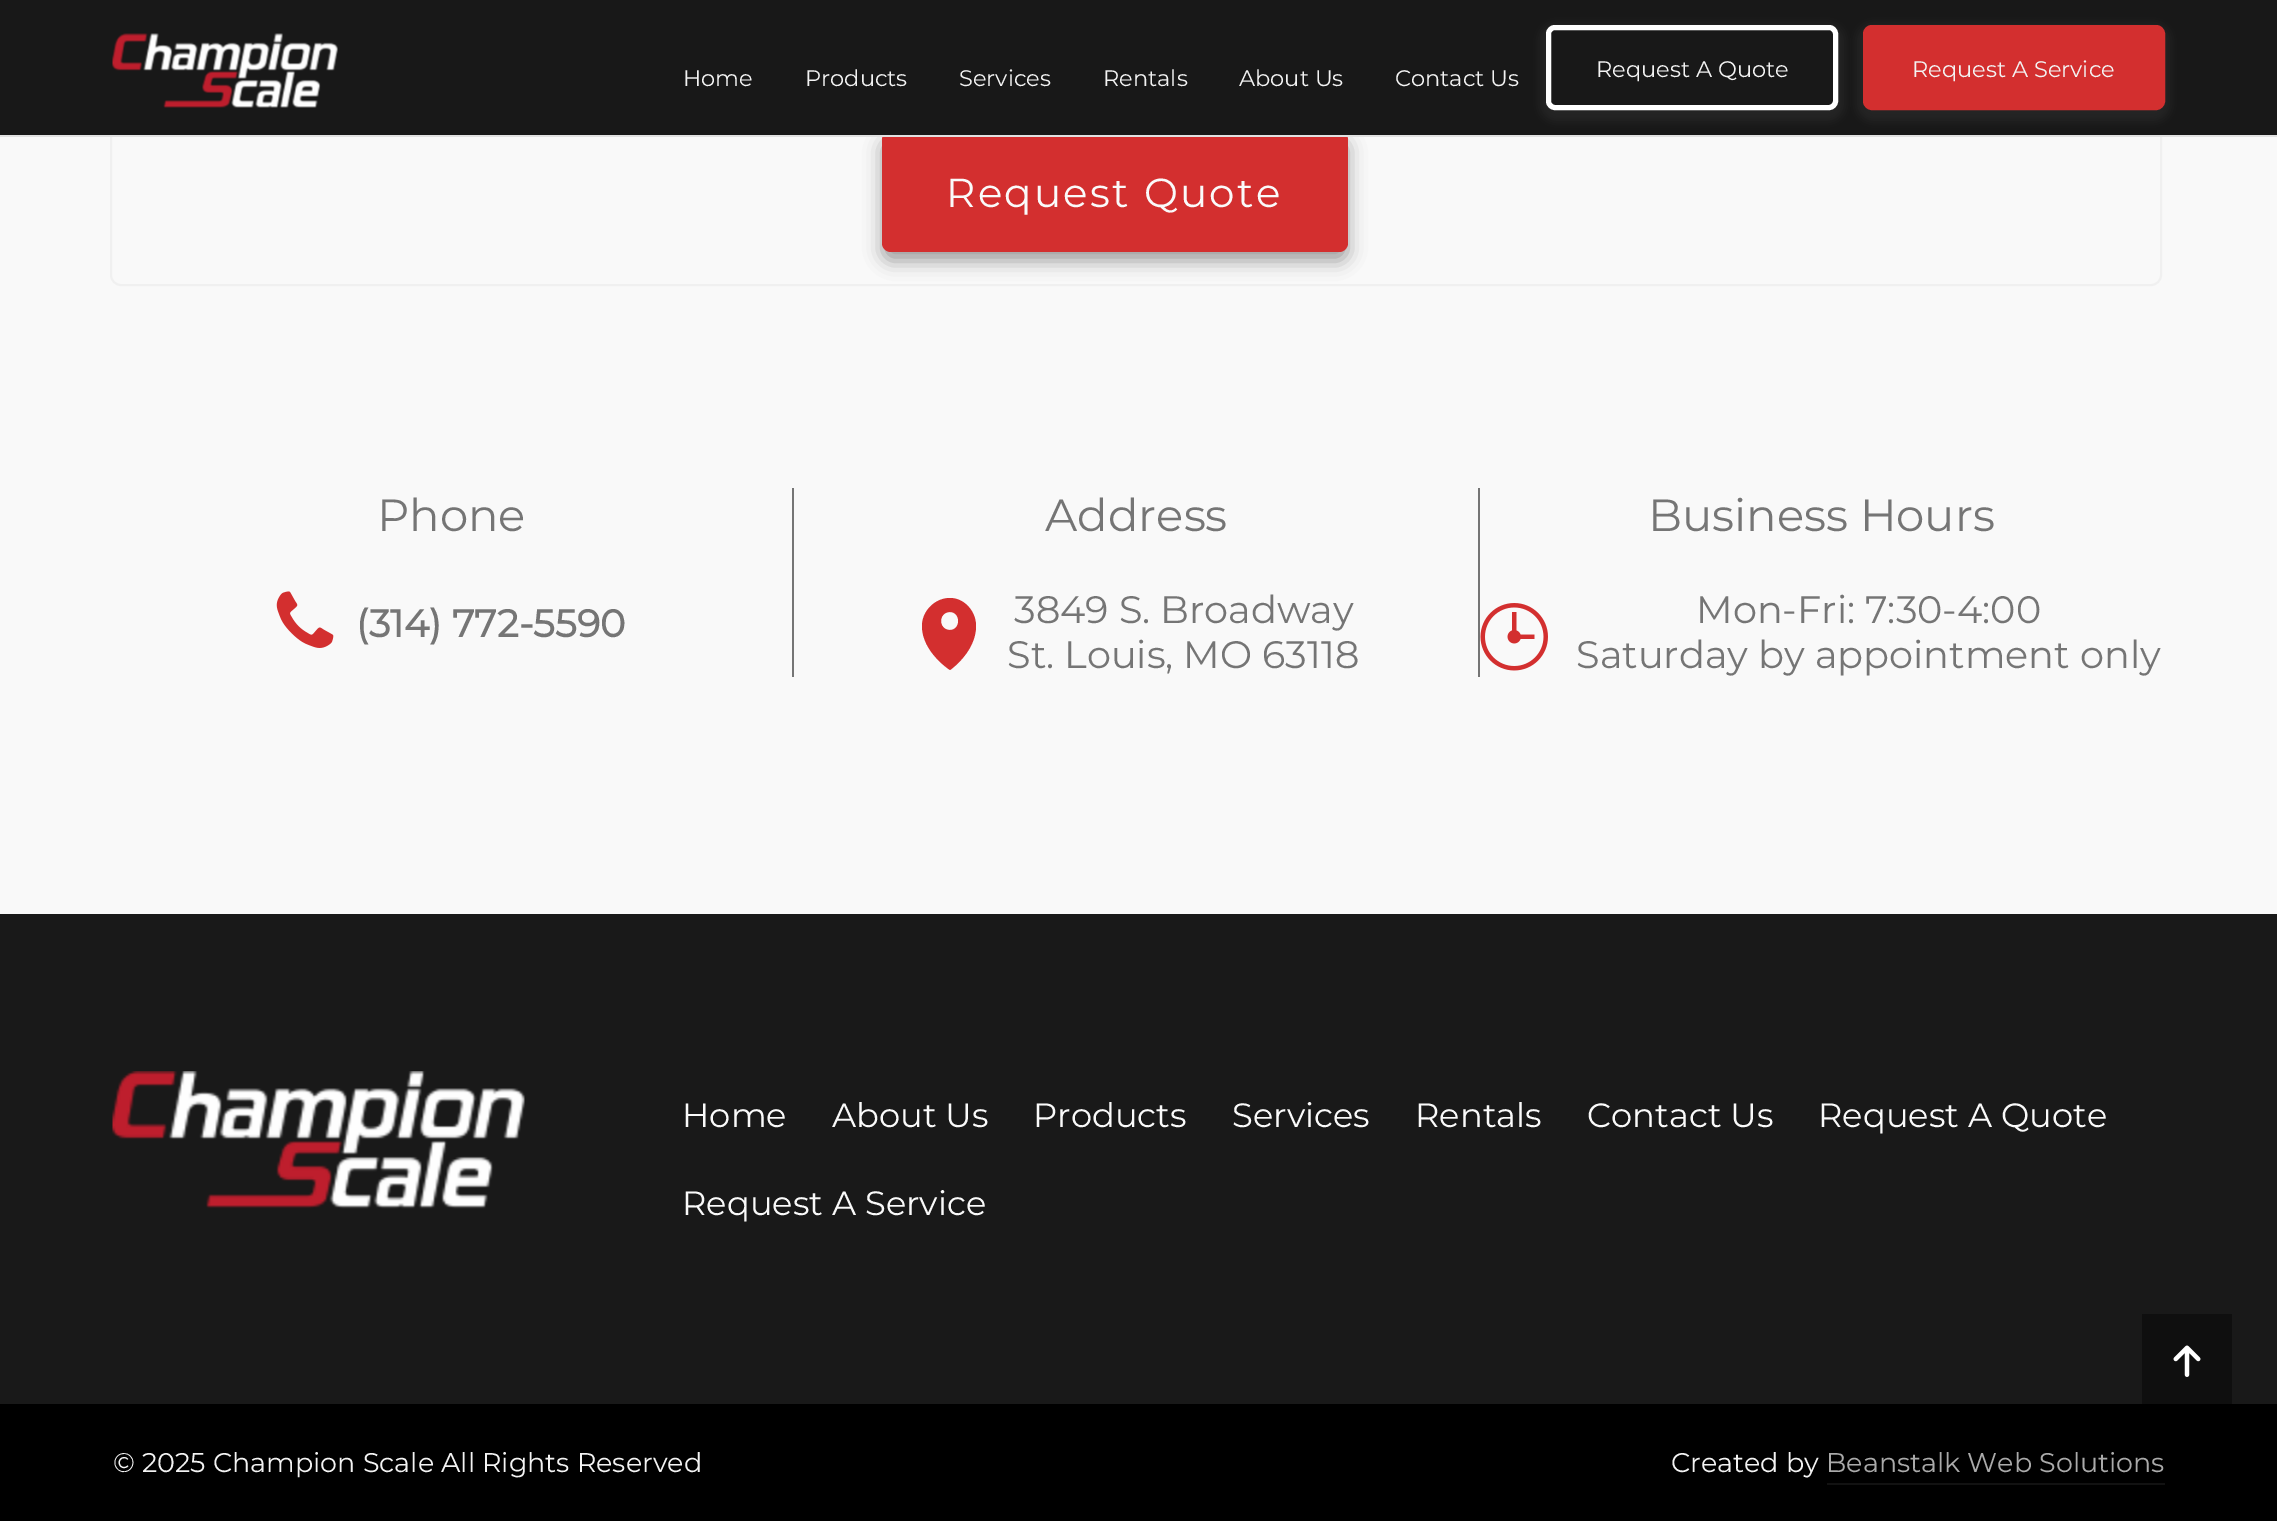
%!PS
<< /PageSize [2277 1521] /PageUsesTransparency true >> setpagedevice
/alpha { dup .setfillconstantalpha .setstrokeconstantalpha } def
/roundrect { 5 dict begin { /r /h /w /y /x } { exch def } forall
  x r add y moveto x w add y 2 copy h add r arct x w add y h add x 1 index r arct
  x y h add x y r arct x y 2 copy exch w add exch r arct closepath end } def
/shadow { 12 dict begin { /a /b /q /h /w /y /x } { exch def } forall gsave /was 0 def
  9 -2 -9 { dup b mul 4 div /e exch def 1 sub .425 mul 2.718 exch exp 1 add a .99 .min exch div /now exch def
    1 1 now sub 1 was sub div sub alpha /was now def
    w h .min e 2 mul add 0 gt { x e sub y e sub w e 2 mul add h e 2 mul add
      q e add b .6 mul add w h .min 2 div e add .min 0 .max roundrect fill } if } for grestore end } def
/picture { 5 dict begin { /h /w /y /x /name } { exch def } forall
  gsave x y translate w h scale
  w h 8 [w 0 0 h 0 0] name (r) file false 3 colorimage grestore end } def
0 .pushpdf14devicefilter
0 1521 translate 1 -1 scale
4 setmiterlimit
0.976 setgray
0 0 2277 1521 rectfill
0.941 setgray
2 setlinewidth
111 -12 2050 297 10 roundrect stroke
0.255 0.251 0.251 setrgbcolor
882 140 466 121 9 9 0.5 shadow
0.827 0.184 0.184 setrgbcolor
882 131 466 121 9 roundrect fill
0.094 setgray
0 0 2277 135 rectfill
0.882 setgray
0 135 2277 2 rectfill
(img1.rgb) 112 33 226 75 picture
/Montserrat-Thin [22.5 0 0 -22.5 0 0] selectfont
0.953 setgray
683 86 moveto (Home) show
805 86 moveto (Products) show
959 86 moveto (Services) show
1103 86 moveto (Rentals) show
1239 86 moveto (About Us) show
1395 86 moveto (Contact Us) show
gsave
newpath 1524 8 moveto 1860 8 lineto 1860 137 lineto 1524 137 lineto closepath 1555 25 moveto 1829 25 lineto 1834 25 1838 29 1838 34 curveto 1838 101 lineto 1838 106 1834 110 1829 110 curveto 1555 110 lineto 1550 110 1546 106 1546 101 curveto 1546 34 lineto 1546 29 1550 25 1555 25 curveto closepath eoclip newpath
0.188 setgray
1539 23 306 99 16 4.5 0.5 shadow
grestore
1 setgray
5 setlinewidth
1548.5 27.5 287 80 6.5 roundrect stroke
0.953 setgray
1596 77 moveto (Request A Quote) show
0.188 setgray
1856 23 315 99 16 4.5 0.5 shadow
0.827 0.184 0.184 setrgbcolor
1865.5 27.5 297 80 6.5 roundrect gsave fill grestore
stroke
0.953 setgray
1912 77 moveto (Request A Service) show
/Montserrat-Thin [40.5 0 0 -40.5 0 0] selectfont
0.98 setgray
946 207 moveto 2.25 0 (Request Quote) ashow
0.459 setgray
792 488 2 189 rectfill
/Montserrat-Thin [45 0 0 -45 0 0] selectfont
377 531 moveto (Phone) show
(img2.rgb) 276 591 58 57 picture
/Montserrat-Bold [38.25 0 0 -38.25 0 0] selectfont
356 637 moveto (\(314\) 772-5590) show
1478 488 2 189 rectfill
/Montserrat-Thin [45 0 0 -45 0 0] selectfont
1045 531 moveto (Address) show
0.827 0.184 0.184 setrgbcolor
newpath 950 598 moveto 964 598 976 611 976 626 curveto 976 652 950 670 950 670 curveto 950 670 922 652 922 626 curveto 922 611 935 598 950 598 curveto closepath 950 630 moveto 961 630 961 612 950 612 curveto 938 612 938 630 950 630 curveto closepath fill
/Montserrat-Thin [38.25 0 0 -38.25 0 0] selectfont
0.459 setgray
1014 623 moveto (3849 S. Broadway) show
1007 668 moveto (St. Louis, MO 63118) show
/Montserrat-Thin [45 0 0 -45 0 0] selectfont
1648 531 moveto (Business Hours) show
(img3.rgb) 1480 603 68 68 picture
/Montserrat-Thin [38.25 0 0 -38.25 0 0] selectfont
1696 623 moveto (Mon-Fri: 7:30-4:00) show
1576 668 moveto (Saturday by appointment only) show
0.098 setgray
0 914 2277 490 rectfill
(img4.rgb) 112 1071 413 138 picture
/Montserrat-Thin [33.75 0 0 -33.75 0 0] selectfont
0.98 setgray
682 1127 moveto (Home) show
832 1127 moveto (About Us) show
1033 1127 moveto (Products) show
1232 1127 moveto (Services) show
1415 1127 moveto (Rentals) show
1587 1127 moveto (Contact Us) show
1818 1127 moveto (Request A Quote) show
682 1215 moveto (Request A Service) show
0.059 setgray
2142 1314 90 90 rectfill
(img5.rgb) 2173 1345 28 32 picture
0 setgray
0 1404 2277 117 rectfill
/Montserrat-Thin [27 0 0 -27 0 0] selectfont
0.953 setgray
113 1472 moveto (© 2025 Champion Scale All Rights Reserved) show
1671 1472 moveto (Created by) show
0.667 setgray
1826 1472 moveto (Beanstalk Web Solutions) show
0.071 setgray
1827 1483 338 2 rectfill
.poppdf14devicefilter showpage
